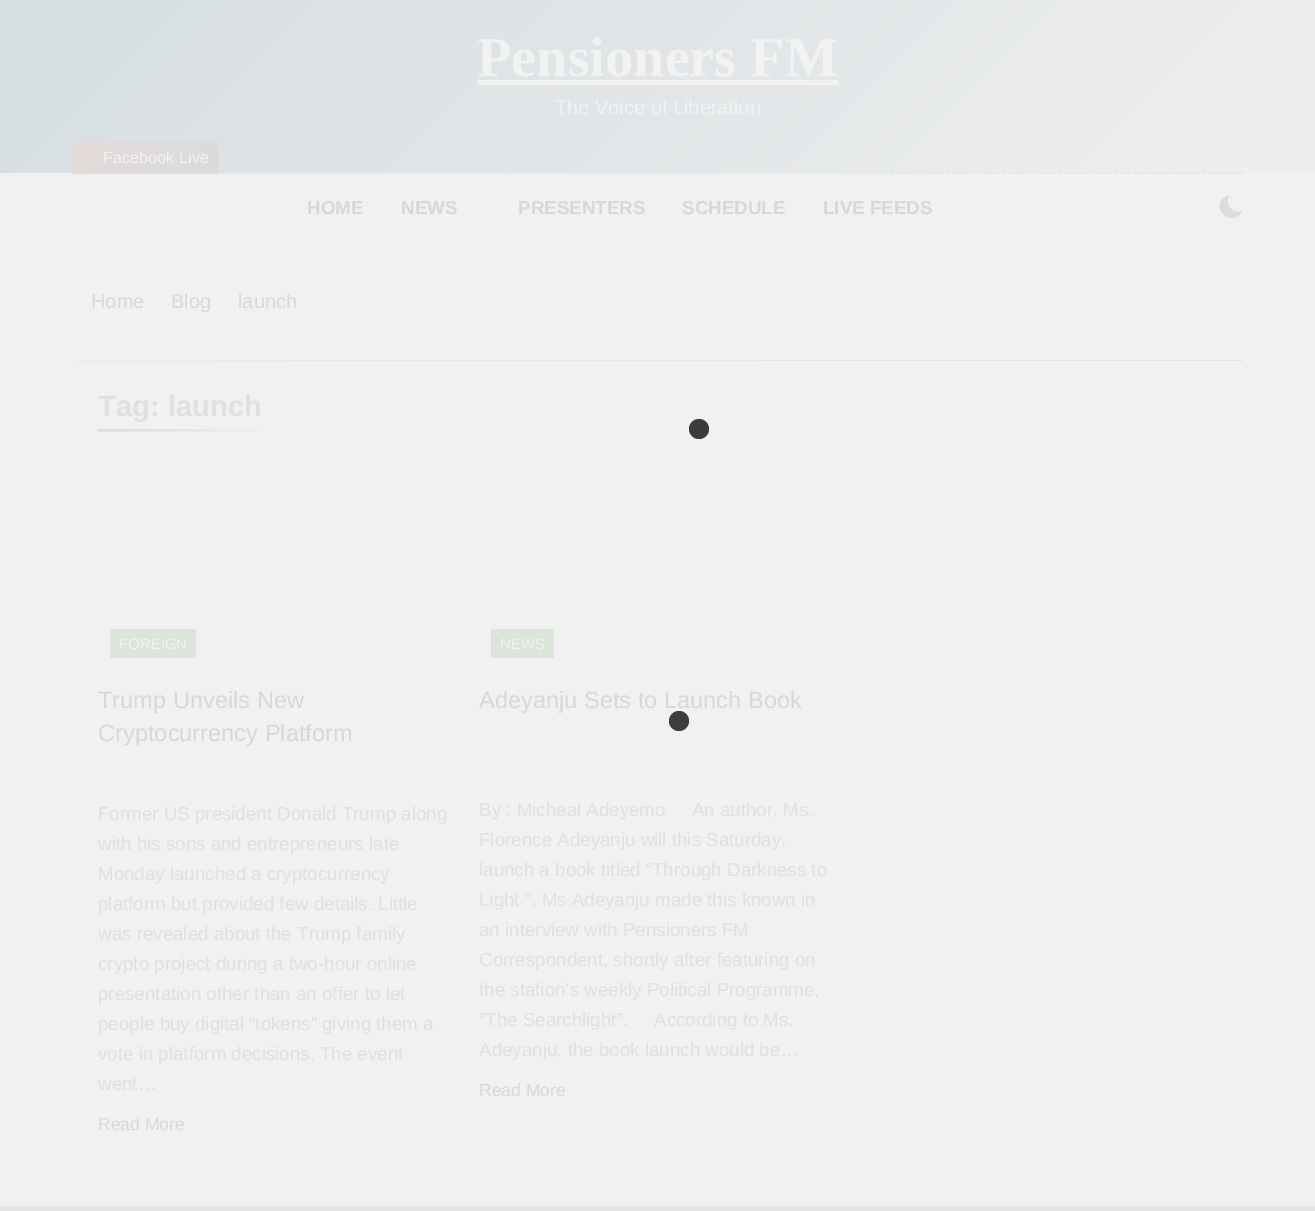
%!PS
<< /PageSize [1315 1211] >> setpagedevice
0 1211 translate 1 -1 scale
4 setmiterlimit
0.945 setgray
0 0 1315 1211 rectfill
gsave newpath 0 0 moveto 1315 0 lineto 1315 173 lineto 0 173 lineto closepath clip newpath
<< /ShadingType 2 /ColorSpace /DeviceRGB /Coords [281 -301 1034 453] /Extend [true true] /Function << /FunctionType 3 /Domain [0 1] /Functions [<< /FunctionType 2 /Domain [0 1] /C0 [0.847 0.875 0.89] /C1 [0.847 0.875 0.89] /N 1 >> << /FunctionType 2 /Domain [0 1] /C0 [0.847 0.875 0.89] /C1 [0.937 0.937 0.937] /N 1 >>] /Bounds [0.1] /Encode [0 1 0 1] >> >> shfill grestore
/LiberationSerif-Bold [56.25 0 0 -56.25 0 0] selectfont
0.949 setgray
477 76 moveto (Pensioners FM) show
478 80 360 5 rectfill
/LiberationSans-Regular [20 0 0 -20 0 0] selectfont
555 114 moveto (The Voice of Liberation) show
0.886 0.894 0.902 setrgbcolor
1.2 setlinewidth
[3.75 2.49] 0 setdash
newpath 72.5 173 moveto 1242.5 173 lineto stroke
gsave newpath 77 141 moveto 215 141 lineto 217 141 219 143 219 145 curveto 219 174 lineto 73 174 lineto 73 145 lineto 73 143 75 141 77 141 curveto closepath clip newpath
<< /ShadingType 2 /ColorSpace /DeviceRGB /Coords [101 113 190 202] /Extend [true true] /Function << /FunctionType 3 /Domain [0 1] /Functions [<< /FunctionType 2 /Domain [0 1] /C0 [0.898 0.855 0.855] /C1 [0.898 0.855 0.855] /N 1 >> << /FunctionType 2 /Domain [0 1] /C0 [0.898 0.855 0.855] /C1 [0.859 0.859 0.859] /N 1 >> << /FunctionType 2 /Domain [0 1] /C0 [0.859 0.859 0.859] /C1 [0.859 0.859 0.859] /N 1 >>] /Bounds [0.13 0.89] /Encode [0 1 0 1 0 1] >> >> shfill grestore
/LiberationSans-Regular [16.25 0 0 -16.25 0 0] selectfont
0.949 setgray
103 163 moveto (Facebook Live) show
/LiberationSans-Bold [18.75 0 0 -18.75 0 0] selectfont
0.847 setgray
307 214 moveto (HOME) show
401 214 moveto (NEWS) show
518 214 moveto (PRESENTERS) show
682 214 moveto (SCHEDULE) show
823 214 moveto (LIVE FEEDS) show
0.863 setgray
newpath 1242 211.5 moveto 1232 214 1224 204 1229.5 195 curveto 1226 196 1223 198 1221.5 200.5 curveto 1213.5 214.5 1235 225.5 1242 211.5 curveto closepath fill
/LiberationSans-Regular [20 0 0 -20 0 0] selectfont
0.847 setgray
91 308 moveto (Home) show
171 308 moveto (Blog) show
238 308 moveto (launch) show
gsave newpath 73 360 moveto 1243 360 lineto 1243 361 lineto 73 361 lineto closepath clip newpath
<< /ShadingType 2 /ColorSpace /DeviceRGB /Coords [365 68 950 653] /Extend [true true] /Function << /FunctionType 3 /Domain [0 1] /Functions [<< /FunctionType 2 /Domain [0 1] /C0 [0.929 0.91 0.945] /C1 [0.929 0.91 0.945] /N 1 >> << /FunctionType 2 /Domain [0 1] /C0 [0.929 0.91 0.945] /C1 [0.894 0.886 0.941] /N 1 >>] /Bounds [0.1] /Encode [0 1 0 1] >> >> shfill grestore
/LiberationSans-Bold [29.25 0 0 -29.25 0 0] selectfont
0.878 setgray
98 416 moveto (Tag: launch) show
gsave newpath 98 429 moveto 261 429 lineto 261 432 lineto 98 432 lineto closepath clip newpath
<< /ShadingType 2 /ColorSpace /DeviceRGB /Coords [179 423 180 437] /Extend [true true] /Function << /FunctionType 2 /Domain [0 1] /C0 [0.863 0.863 0.863] /C1 [0.941 0.941 0.941] /N 1 >> >> shfill grestore
0.859 0.898 0.855 setrgbcolor
110 629 86 29 rectfill
/LiberationSans-Regular [15 0 0 -15 0 0] selectfont
0.949 setgray
119 649 moveto (FOREIGN) show
/LiberationSans-Regular [23.6 0 0 -23.6 0 0] selectfont
0.847 setgray
98 708 moveto (Trump Unveils New) show
98 741 moveto (Cryptocurrency Platform) show
/LiberationSans-Regular [18.75 0 0 -18.75 0 0] selectfont
0.878 setgray
98 820 moveto (Former US president Donald Trump along) show
98 850 moveto (with his sons and entrepreneurs late) show
98 880 moveto (Monday launched a cryptocurrency) show
98 910 moveto (platform but provided few details. Little) show
98 940 moveto (was revealed about the Trump family) show
98 970 moveto (crypto project during a two-hour online) show
98 1000 moveto (presentation other than an offer to let) show
98 1030 moveto (people buy digital “tokens” giving them a) show
98 1060 moveto (vote in platform decisions. The event) show
98 1090 moveto (went…) show
/LiberationSans-Regular [17.5 0 0 -17.5 0 0] selectfont
0.847 setgray
98 1130 moveto (Read More) show
0.859 0.898 0.855 setrgbcolor
491 629 63 29 rectfill
/LiberationSans-Regular [15 0 0 -15 0 0] selectfont
0.949 setgray
500 649 moveto (NEWS) show
/LiberationSans-Regular [23.6 0 0 -23.6 0 0] selectfont
0.847 setgray
479 708 moveto (Adeyanju Sets to Launch Book) show
/LiberationSans-Regular [18.75 0 0 -18.75 0 0] selectfont
0.878 setgray
479 816 moveto (By : Micheal Adeyemo     An author, Ms.) show
479 846 moveto (Florence Adeyanju will this Saturday,) show
479 876 moveto (launch a book titled “Through Darkness to) show
479 906 moveto (Light “. Ms Adeyanju made this known in) show
479 936 moveto (an interview with Pensioners FM) show
479 966 moveto (Correspondent, shortly after featuring on) show
479 996 moveto (the station’s weekly Political Programme,) show
479 1026 moveto (“The Searchlight”.     According to Ms.) show
479 1056 moveto (Adeyanju, the book launch would be…) show
/LiberationSans-Regular [17.5 0 0 -17.5 0 0] selectfont
0.847 setgray
479 1096 moveto (Read More) show
0.231 0.231 0.243 setrgbcolor
newpath 699 429 10 0 360 arc closepath fill
0.239 0.239 0.247 setrgbcolor
newpath 679 721 10 0 360 arc closepath fill
0.886 0.894 0.902 setrgbcolor
0 1206 1315 5 rectfill
showpage
